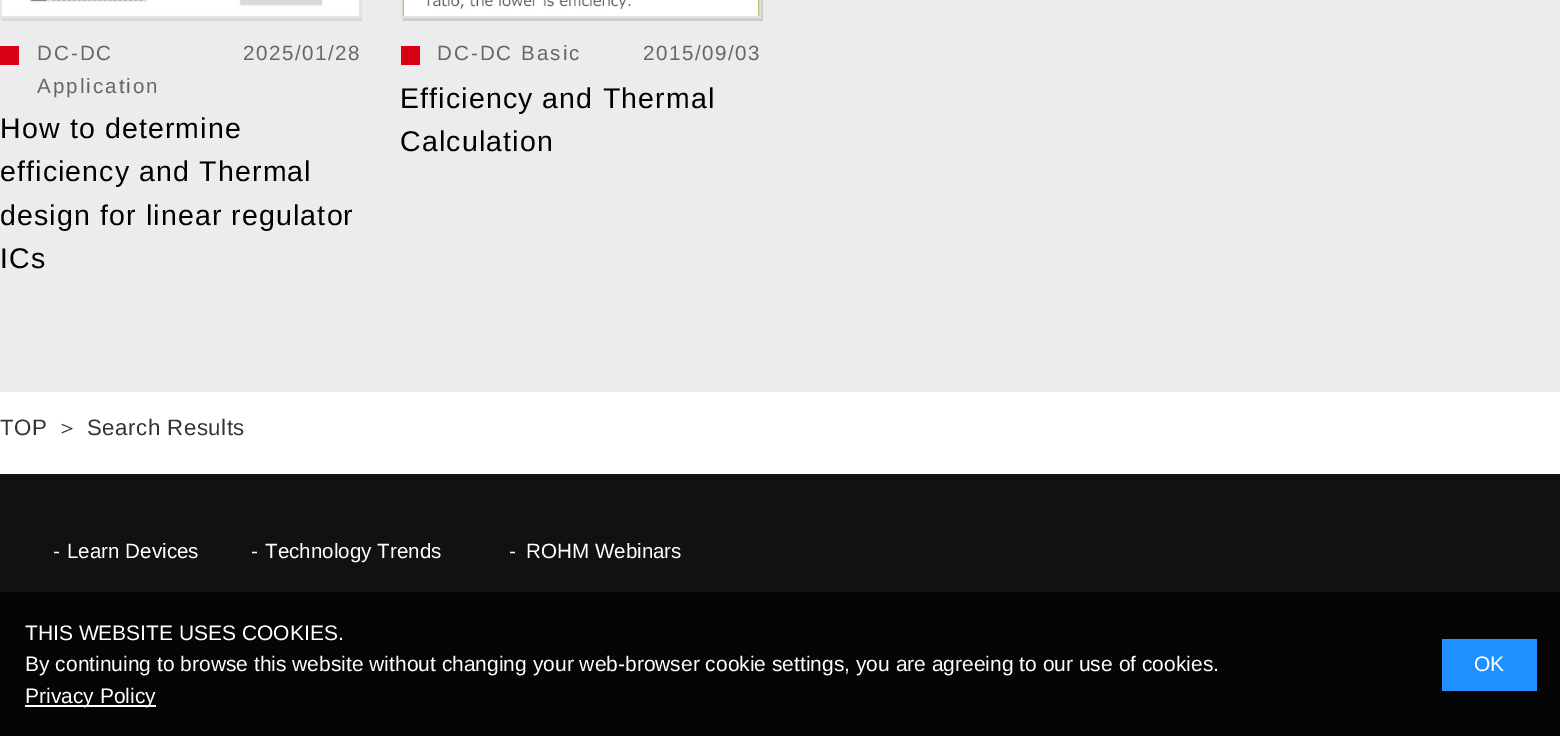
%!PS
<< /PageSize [1560 736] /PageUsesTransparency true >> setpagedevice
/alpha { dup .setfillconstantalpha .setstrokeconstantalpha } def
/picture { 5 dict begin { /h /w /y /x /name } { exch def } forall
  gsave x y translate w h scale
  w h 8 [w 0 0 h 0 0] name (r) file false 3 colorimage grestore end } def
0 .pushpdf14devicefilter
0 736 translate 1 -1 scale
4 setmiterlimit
1 setgray
0 0 1560 736 rectfill
0.925 setgray
0 0 1560 392 rectfill
0.851 setgray
newpath 2 18 moveto 2 21 lineto 362 21 lineto 362 -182 lineto 360 -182 lineto 360 18 lineto closepath fill
0.969 setgray
newpath 1 -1 moveto 360 -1 lineto 360 17 lineto 1 17 lineto closepath gsave fill grestore
0.902 setgray
2 setlinewidth
stroke
(img1.rgb) 2 0 357 16 picture
0.851 0 0.075 setrgbcolor
0 46 19 19 rectfill
/LiberationSans-Regular [20.6 0 0 -20.6 0 0] selectfont
0.396 0.4 0.416 setrgbcolor
37 60 moveto 2 0 (DC-DC) ashow
37 93 moveto 2 0 (Application) ashow
243 60 moveto 1.5 0 (2025/01/28) ashow
/LiberationSans-Regular [28.5 0 0 -28.5 0 0] selectfont
0 setgray
0 138 moveto 1.15 0 (How to determine) ashow
0 181 moveto 1.15 0 (efficiency and Thermal) ashow
0 225 moveto 1.15 0 (design for linear regulator) ashow
0 268 moveto 1.15 0 (ICs) ashow
0.8 setgray
newpath 403 18 moveto 403 21 lineto 763 21 lineto 763 -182 lineto 761 -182 lineto 761 18 lineto closepath fill
0.886 setgray
402 -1 358 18 rectstroke
(img2.rgb) 402 0 358 16 picture
0.851 0 0.075 setrgbcolor
401 46 19 19 rectfill
/LiberationSans-Regular [20.6 0 0 -20.6 0 0] selectfont
0.396 0.4 0.416 setrgbcolor
437 60 moveto 2 0 (DC-DC Basic) ashow
643 60 moveto 1.5 0 (2015/09/03) ashow
/LiberationSans-Regular [28.5 0 0 -28.5 0 0] selectfont
0 setgray
400 108 moveto 1.15 0 (Efficiency and Thermal) ashow
400 151 moveto 1.15 0 (Calculation) ashow
/LiberationSans-Regular [22.25 0 0 -22.25 0 0] selectfont
0.208 setgray
0 435 moveto 0.5 0 (TOP) ashow
/WenQuanYiZenHei-Medium [22.25 0 0 -22.25 0 0] selectfont
56 435 moveto 0.5 0 (＞) ashow
/LiberationSans-Regular [22.25 0 0 -22.25 0 0] selectfont
87 435 moveto 0.5 0 (Search Results) ashow
0.067 setgray
0 474 1560 262 rectfill
/LiberationSans-Regular [20.6 0 0 -20.6 0 0] selectfont
1 setgray
53 558 moveto (-) show
67 558 moveto (Learn Devices) show
251 558 moveto (-) show
265 558 moveto (Technology Trends) show
509 558 moveto (-) show
526 558 moveto (ROHM Webinars) show
0.7 alpha
0 setgray
0 592 1560 144 rectfill
/LiberationSans-Regular [21 0 0 -21 0 0] selectfont
1 alpha
1 setgray
25 640 moveto (THIS WEBSITE USES COOKIES.) show
25 671 moveto (By continuing to browse this website without changing your web-browser cookie settings, you are agreeing to our use of cookies.) show
25 705 131 2 rectfill
25 703 moveto (Privacy Policy) show
0.118 0.565 1 setrgbcolor
1442 639 95 52 rectfill
1 setgray
1474 671 moveto (OK) show
.poppdf14devicefilter showpage
